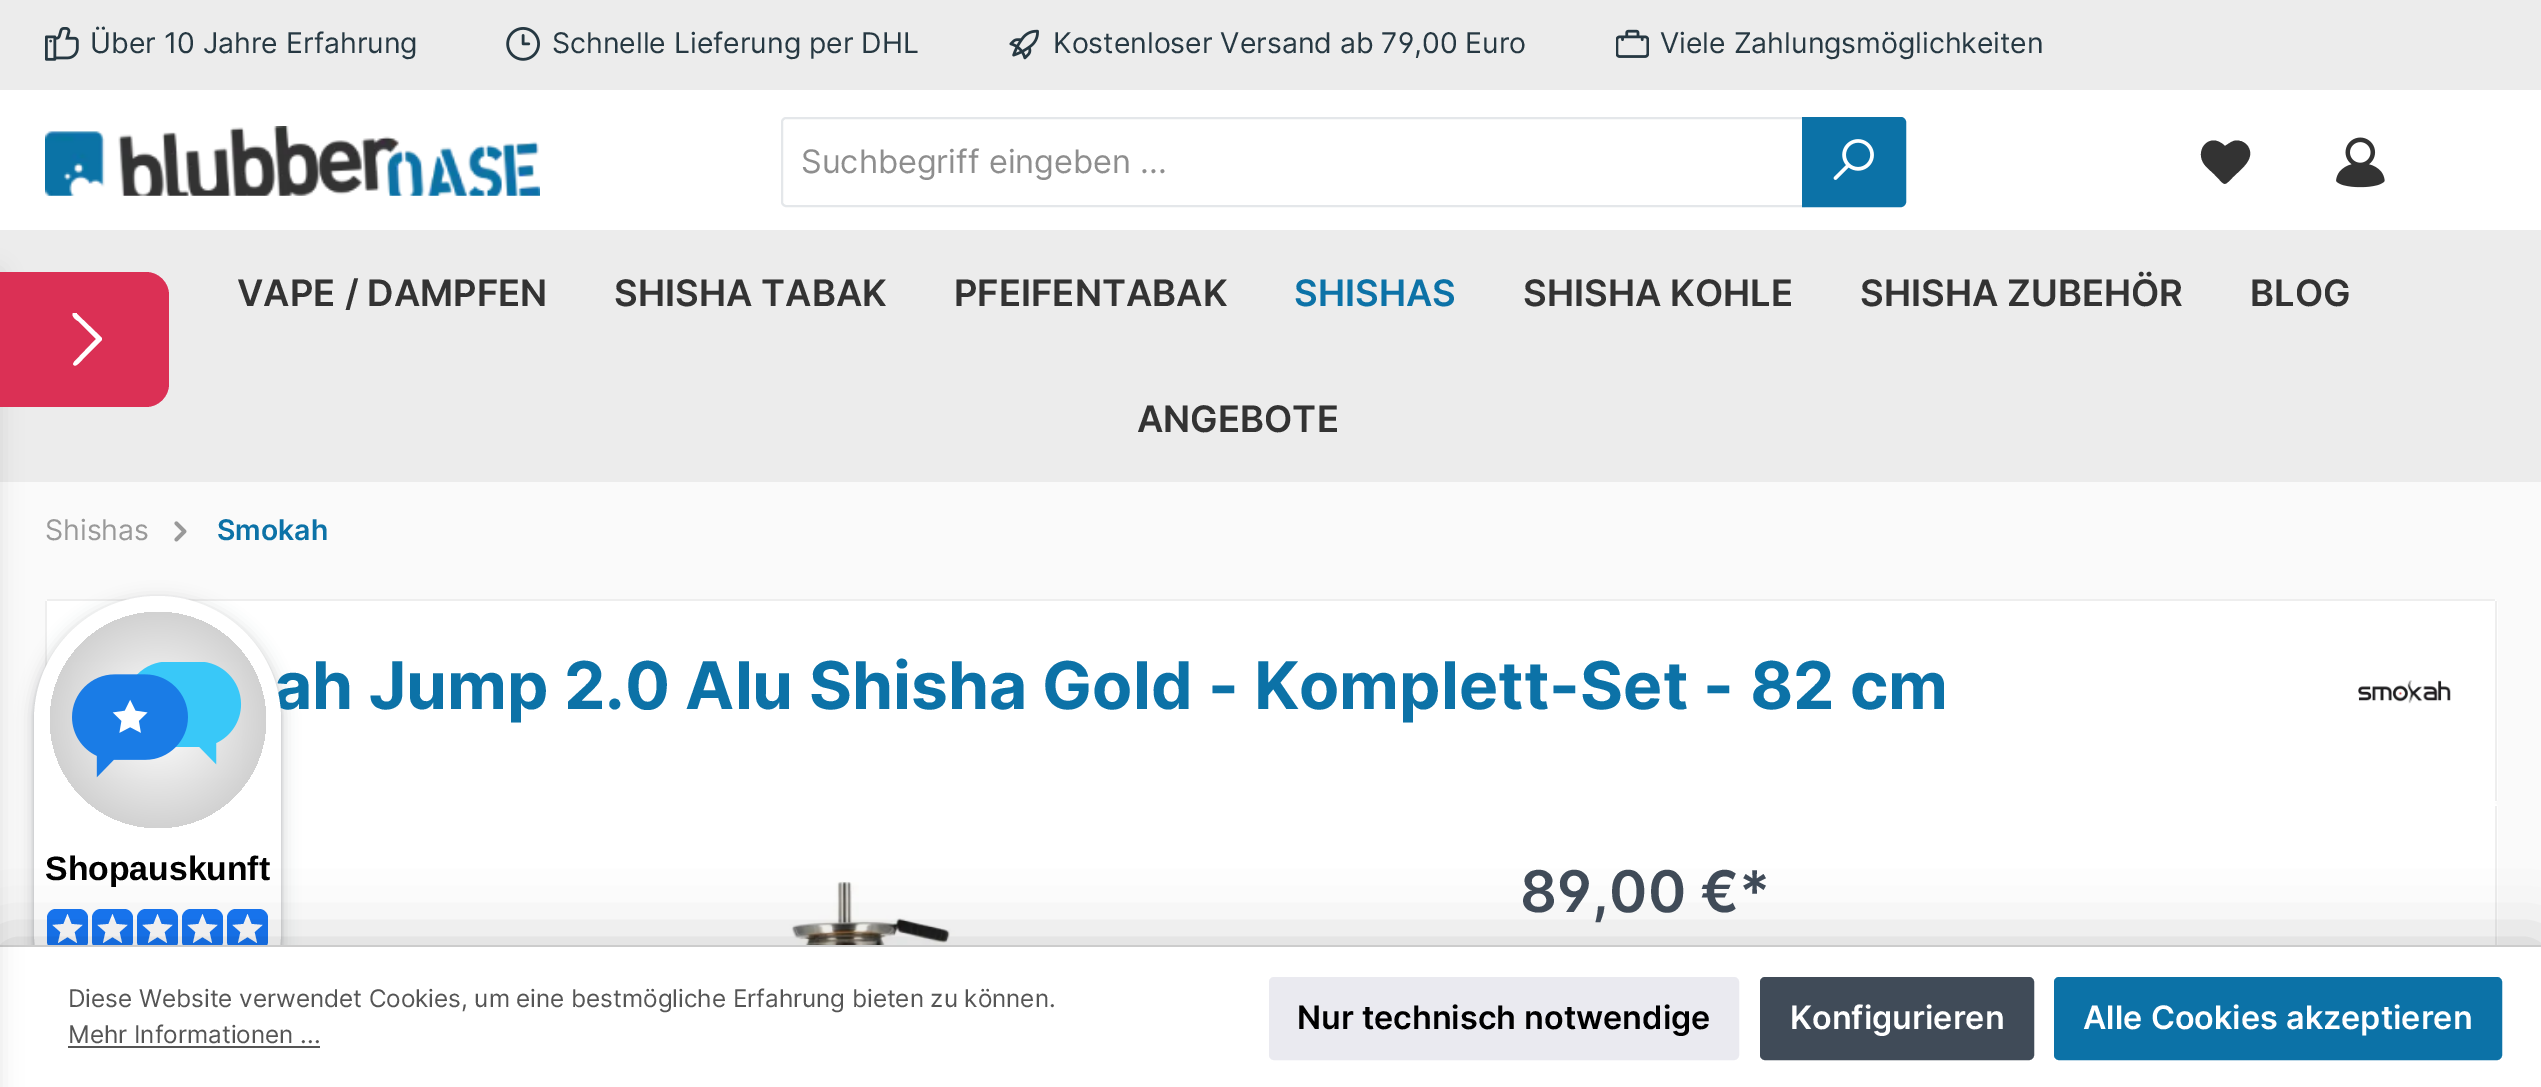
%!PS
<< /PageSize [2541 1087] /PageUsesTransparency true >> setpagedevice
/alpha { dup .setfillconstantalpha .setstrokeconstantalpha } def
/roundrect { 5 dict begin { /r /h /w /y /x } { exch def } forall
  x r add y moveto x w add y 2 copy h add r arct x w add y h add x 1 index r arct
  x y h add x y r arct x y 2 copy exch w add exch r arct closepath end } def
/shadow { 12 dict begin { /a /b /q /h /w /y /x } { exch def } forall gsave /was 0 def
  9 -2 -9 { dup b mul 4 div /e exch def 1 sub .425 mul 2.718 exch exp 1 add a .99 .min exch div /now exch def
    1 1 now sub 1 was sub div sub alpha /was now def
    w h .min e 2 mul add 0 gt { x e sub y e sub w e 2 mul add h e 2 mul add
      q e add b .6 mul add w h .min 2 div e add .min 0 .max roundrect fill } if } for grestore end } def
/picture { 5 dict begin { /h /w /y /x /name } { exch def } forall
  gsave x y translate w h scale
  w h 8 [w 0 0 h 0 0] name (r) file false 3 colorimage grestore end } def
0 .pushpdf14devicefilter
0 1087 translate 1 -1 scale
4 setmiterlimit
0.98 setgray
0 0 2541 1087 rectfill
0.925 setgray
0 0 2541 90 rectfill
(img1.rgb) 45 27 34 34 picture
/Inter-Regular [28.4 0 0 -28.4 0 0] selectfont
0.149 0.22 0.259 setrgbcolor
90 53 moveto (Über 10 Jahre Erfahrung) show
(img2.rgb) 506 27 34 34 picture
552 53 moveto (Schnelle Lieferung per DHL) show
(img3.rgb) 1009 29 30 31 picture
/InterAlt-Regular [28.4 0 0 -28.4 0 0] selectfont
1053 53 moveto (Kostenloser Versand ab 79,00 Euro) show
(img4.rgb) 1616 29 33 29 picture
/Inter-Regular [28.4 0 0 -28.4 0 0] selectfont
1660 53 moveto (Viele Zahlungsmöglichkeiten) show
1 setgray
0 90 2541 140 rectfill
(img5.rgb) 45 126 495 70 picture
0.894 0.906 0.918 setrgbcolor
2 setlinewidth
newpath 786 118 moveto 1804 118 lineto 1804 206 lineto 786 206 lineto 784 206 782 204 782 202 curveto 782 122 lineto 782 120 784 118 786 118 curveto closepath stroke
/Inter-Regular [32.4 0 0 -32.4 0 0] selectfont
0.557 setgray
801 173 moveto (Suchbegriff eingeben ...) show
0.047 0.447 0.655 setrgbcolor
newpath 1803 118 moveto 1901 118 lineto 1903 118 1905 120 1905 122 curveto 1905 202 lineto 1905 204 1903 206 1901 206 curveto 1803 206 lineto closepath gsave fill grestore
stroke
(img6.rgb) 1833 139 41 41 picture
0.2 setgray
newpath 2247 145 moveto 2245 143 2242 141 2240 141 curveto 2234 139 2230 143 2225 146 curveto 2223 144 2220 142 2217 141 curveto 2206 138 2198 150 2202 160 curveto 2204 166 2210 170 2214 174 curveto 2226 186 2223 187 2233 177 curveto 2241 169 2257 158 2247 145 curveto closepath fill
(img7.rgb) 2336 137 49 51 picture
0.925 setgray
0 230 2541 252 rectfill
1 setgray
45 803 2453 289 5 roundrect fill
45 599 2453 204 5 roundrect fill
0.933 setgray
47 599 2448 2 rectfill
45 601 2 68 rectfill
0.235 0.251 0.263 setrgbcolor
29 596 257 468 128.5 7 0.15 shadow
34 599 247 459 123.5 2 0.3 shadow
/Inter-Bold [65.8 0 0 -65.8 0 0] selectfont
0.047 0.447 0.655 setrgbcolor
274 709 moveto (ah Jump 2.0 Alu Shisha Gold - Komplett-Set - 82 cm) show
1 setgray
34 596 247 459 123.5 roundrect fill
0.09 0.467 0.957 setrgbcolor
47 909 41 41 9 roundrect fill
92 909 41 41 9 roundrect fill
137 909 41 41 9 roundrect fill
182 909 41 41 9 roundrect fill
227 909 41 41 9 roundrect fill
0.933 setgray
2495 806 2 139 rectfill
(img10.rgb) 714 881 264 64 picture
1 setgray
newpath 67.5 937 moveto 77 943 lineto 74.5 932 lineto 82.5 925 lineto 71.5 924 lineto 67.5 914 lineto 63.5 924 lineto 52.5 925 lineto 60.5 932 lineto 58 943 lineto closepath fill
newpath 112.5 937 moveto 122 943 lineto 119.5 932 lineto 127.5 925 lineto 116.5 924 lineto 112.5 914 lineto 108.5 924 lineto 97.5 925 lineto 105.5 932 lineto 103 943 lineto closepath fill
newpath 157.5 937 moveto 167 943 lineto 164.5 932 lineto 172.5 925 lineto 161.5 924 lineto 157.5 914 lineto 153.5 924 lineto 142.5 925 lineto 150.5 932 lineto 148 943 lineto closepath fill
newpath 202.5 937 moveto 212 943 lineto 209.5 932 lineto 217.5 925 lineto 206.5 924 lineto 202.5 914 lineto 198.5 924 lineto 187.5 925 lineto 195.5 932 lineto 193 943 lineto closepath fill
newpath 247.5 937 moveto 257 943 lineto 254.5 932 lineto 262.5 925 lineto 251.5 924 lineto 247.5 914 lineto 243.5 924 lineto 232.5 925 lineto 240.5 932 lineto 238 943 lineto closepath fill
0 setgray
0 945 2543 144 0 34 0.2 shadow
1 setgray
0 947 2541 140 rectfill
0.8 setgray
0 945 2541 2 rectfill
0 setgray
-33 272 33 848 0 11 0.1 shadow
0.859 0.188 0.333 setrgbcolor
newpath 0 272 moveto 146 272 lineto 158.5 272 169 282.5 169 295 curveto 169 384 lineto 169 396.5 158.5 407 146 407 curveto 0 407 lineto closepath fill
1 setgray
newpath 77 314 moveto 102 338 lineto 102 340 lineto 83 359 lineto 78 364 75 368 73 364 curveto 74 362 lineto 96 339 lineto 78 321 lineto 76 320 71 316 73 313 curveto 77 313 lineto closepath fill
/Inter-SemiBold [36.5 0 0 -36.5 0 0] selectfont
0.2 setgray
237 306 moveto (VAPE / DAMPFEN) show
614 306 moveto (SHISHA TABAK) show
954 306 moveto (PFEIFENTABAK) show
0.047 0.447 0.655 setrgbcolor
1294 306 moveto (SHISHAS) show
0.2 setgray
1523 306 moveto (SHISHA KOHLE) show
1860 306 moveto (SHISHA ZUBEHÖR) show
2250 306 moveto (BLOG) show
1137 432 moveto (ANGEBOTE) show
/Inter-Regular [28.4 0 0 -28.4 0 0] selectfont
0.6 setgray
45 540 moveto (Shishas) show
(img8.rgb) 174 521 13 21 picture
/Inter-SemiBold [28.4 0 0 -28.4 0 0] selectfont
0.047 0.447 0.655 setrgbcolor
217 540 moveto (Smokah) show
0.933 setgray
2495 601 2 200 rectfill
(img9.rgb) 2358 680 93 24 picture
/InterAlt-SemiBold [57.5 0 0 -57.5 0 0] selectfont
0.251 0.294 0.345 setrgbcolor
1520 912 moveto (89,00 €*) show
gsave newpath 158 720 108 0 360 arc closepath clip newpath 158 720 translate 153 153 scale
<< /ShadingType 3 /ColorSpace /DeviceRGB /Coords [0 0 0 0 0 1] /Extend [true true] /Function << /FunctionType 2 /Domain [0 1] /C0 [1 1 1] /C1 [0.749 0.749 0.749] /N 1 >> >> shfill grestore
(img11.rgb) 72 662 170 116 picture
/LiberationSans-Bold [33.75 0 0 -33.75 0 0] selectfont
0 setgray
45 880 moveto (Shopauskunft) show
/Inter-Regular [24.3 0 0 -24.3 0 0] selectfont
0.333 setgray
68 1007 moveto -0.25 0 32 (Diese Website verwendet Cookies, um eine bestmögliche Erfahrung bieten zu können.) widthshow
68 1043 moveto (Mehr Informationen ...) show
68 1046 252 2 rectfill
0.918 0.918 0.941 setrgbcolor
1270 978 468 81 4 roundrect gsave fill grestore
stroke
/Inter-SemiBold [32.4 0 0 -32.4 0 0] selectfont
0 setgray
1297 1029 moveto (Nur technisch notwendige) show
0.251 0.294 0.345 setrgbcolor
1761 978 272 81 4 roundrect gsave fill grestore
stroke
1 setgray
1790 1029 moveto (Konfigurieren) show
0.047 0.447 0.655 setrgbcolor
2055 978 446 81 4 roundrect gsave fill grestore
stroke
1 setgray
2083 1029 moveto (Alle Cookies akzeptieren) show
.poppdf14devicefilter showpage
